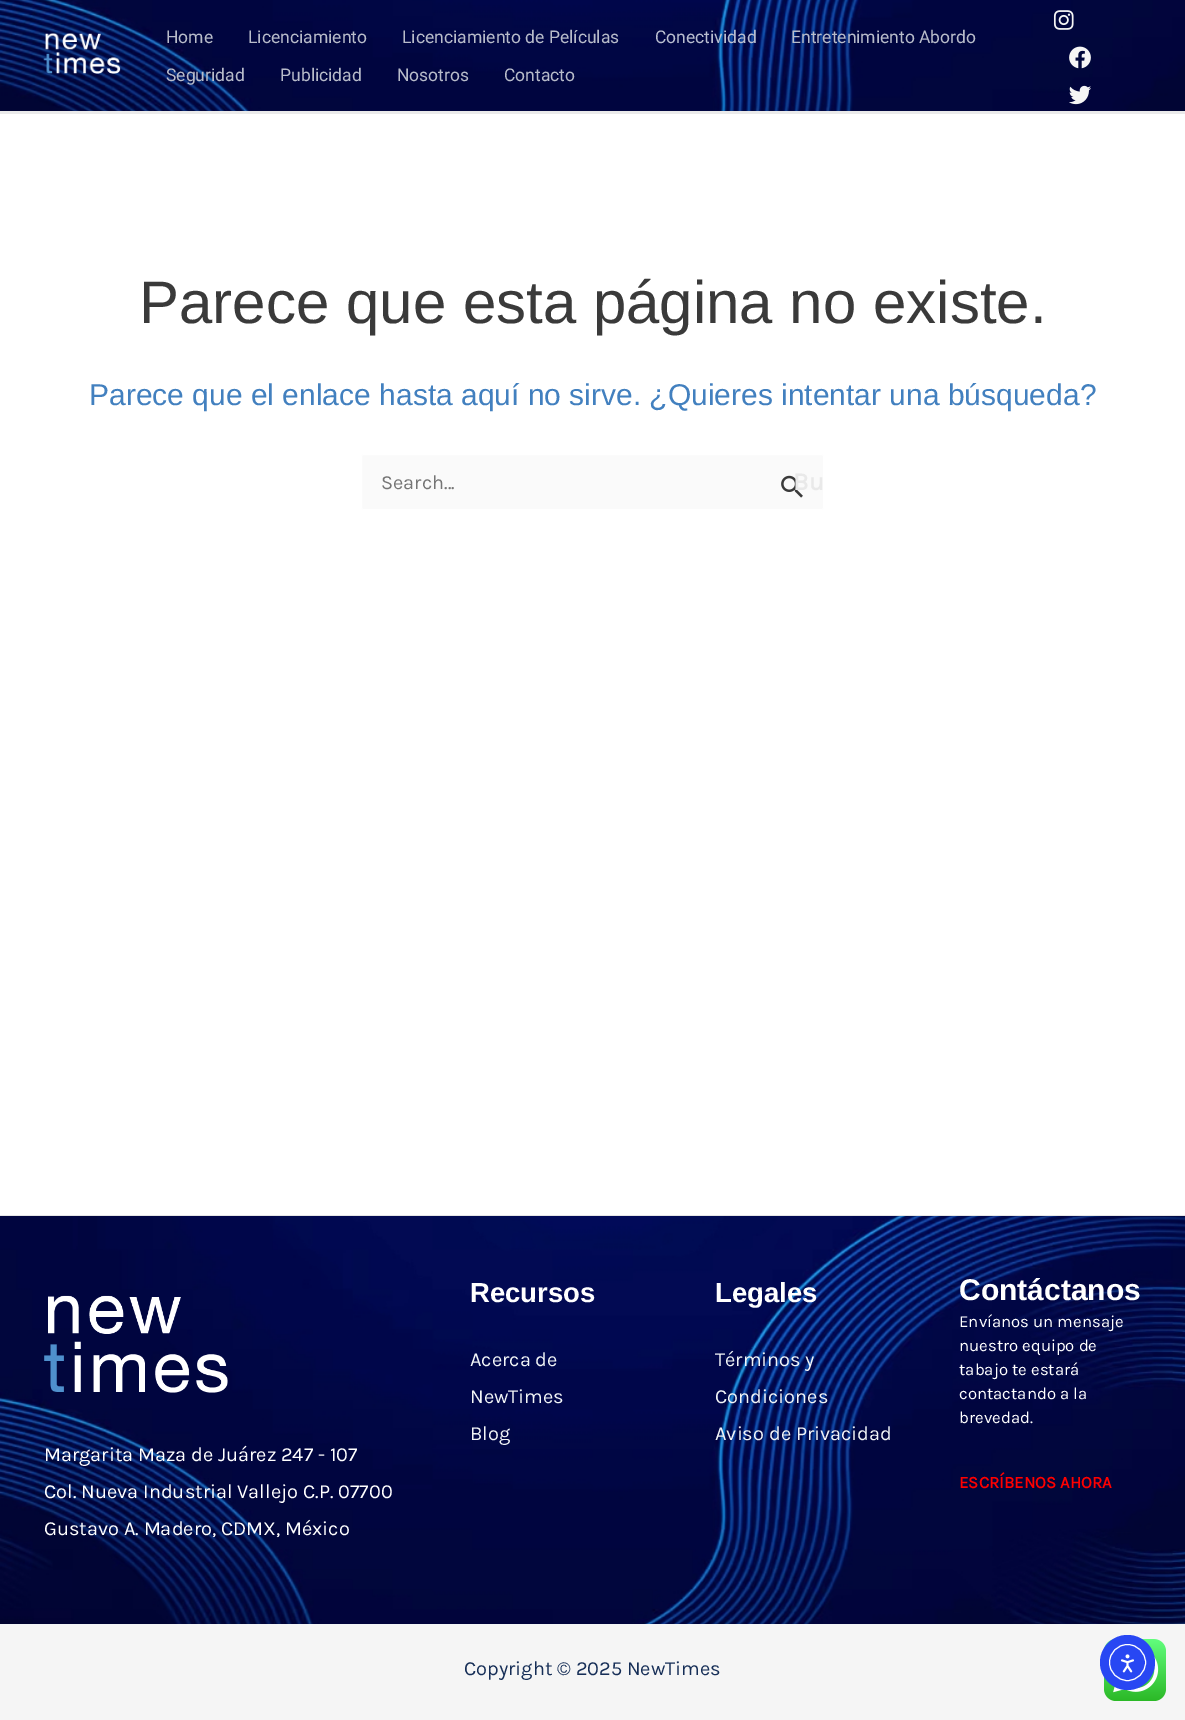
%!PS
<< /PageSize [1185 1720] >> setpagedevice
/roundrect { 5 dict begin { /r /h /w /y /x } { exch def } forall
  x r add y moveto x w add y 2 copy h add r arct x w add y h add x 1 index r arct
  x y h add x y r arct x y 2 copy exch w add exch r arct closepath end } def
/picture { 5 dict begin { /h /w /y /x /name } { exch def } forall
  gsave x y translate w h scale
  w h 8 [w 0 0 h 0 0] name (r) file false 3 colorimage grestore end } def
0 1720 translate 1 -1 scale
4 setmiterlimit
1 setgray
0 0 1185 1720 rectfill
(img1.rgb) 0 0 1185 111 picture
0.918 setgray
0 111 1185 3 rectfill
(img2.rgb) 43 33 78 41 picture
/Roboto-Regular [17.5 0 0 -17.5 0 0] selectfont
0.722 0.737 0.792 setrgbcolor
166 43 moveto (Home) show
248 43 moveto (Licenciamiento) show
402 43 moveto (Licenciamiento de Películas) show
0.725 0.745 0.816 setrgbcolor
655 43 moveto (Conectividad) show
0.722 0.737 0.792 setrgbcolor
791 43 moveto (Entretenimiento Abordo) show
166 81 moveto (Seguridad) show
280 81 moveto (Publicidad) show
397 81 moveto (Nosotros) show
504 81 moveto (Contacto) show
(img3.rgb) 1053 10 21 20 picture
(img4.rgb) 1069 46 22 23 picture
(img5.rgb) 1069 85 22 20 picture
/LiberationSans-Regular [60 0 0 -60 0 0] selectfont
0.227 setgray
139 323 moveto (Parece que esta página no existe.) show
/LiberationSans-Regular [30 0 0 -30 0 0] selectfont
0.259 0.502 0.749 setrgbcolor
89 405 moveto (Parece que el enlace hasta aquí no sirve. ¿Quieres intentar una búsqueda?) show
0.98 setgray
361.5 454.5 462 55 2 roundrect gsave fill grestore
1 setgray
stroke
/Karla-Regular [20 0 0 -20 0 0] selectfont
0.459 setgray
381 489 moveto (Search...) show
(img6.rgb) 781 475 22 23 picture
/Karla-Bold [25 0 0 -25 0 0] selectfont
0.914 setgray
793 490 moveto (Bu) show
(img7.rgb) 0 1216 1185 408 picture
0.902 setgray
0 1215 1185 1 rectfill
/LiberationSans-Bold [27.5 0 0 -27.5 0 0] selectfont
1 setgray
470 1302 moveto (Recursos) show
/Karla-Regular [20 0 0 -20 0 0] selectfont
0.949 0.961 0.969 setrgbcolor
470 1366 moveto (Acerca de) show
470 1403 moveto (NewTimes) show
470 1440 moveto (Blog) show
/LiberationSans-Bold [27.5 0 0 -27.5 0 0] selectfont
1 setgray
715 1302 moveto (Legales) show
/Karla-Regular [20 0 0 -20 0 0] selectfont
0.949 0.961 0.969 setrgbcolor
715 1366 moveto (Términos y) show
715 1403 moveto (Condiciones) show
715 1440 moveto (Aviso de Privacidad) show
/LiberationSans-Bold [30 0 0 -30 0 0] selectfont
1 setgray
959 1300 moveto (Contáctanos) show
/Karla-Regular [16.75 0 0 -16.75 0 0] selectfont
959 1327 moveto (Envíanos un mensaje) show
959 1351 moveto (nuestro equipo de) show
959 1375 moveto (tabajo te estará) show
959 1399 moveto (contactando a la) show
959 1423 moveto (brevedad.) show
/Karla-Bold [16.75 0 0 -16.75 0 0] selectfont
1 0 0 setrgbcolor
959 1488 moveto (ESCRÍBENOS AHORA) show
(img8.rgb) 44 1295 184 98 picture
/Karla-Regular [20 0 0 -20 0 0] selectfont
1 setgray
44 1461 moveto (Margarita Maza de Juárez 247 - 107) show
44 1498 moveto (Col. Nueva Industrial Vallejo C.P. 07700) show
44 1535 moveto (Gustavo A. Madero, CDMX, México) show
0.961 setgray
0 1625 1185 95 rectfill
0.949 0.961 0.969 setrgbcolor
0 1624 1185 1 rectfill
0.086 0.18 0.341 setrgbcolor
464 1675 moveto (Copyright © 2025 NewTimes) show
(img10.rgb) 1104 1639 62 62 picture
0.157 0.278 0.953 setrgbcolor
newpath 1127.5 1662.5 27.5 0 360 arc closepath fill
1 setgray
newpath 1127.5 1662.5 18 0 360 arc closepath stroke
(img9.rgb) 1120 1654 14 19 picture
showpage
